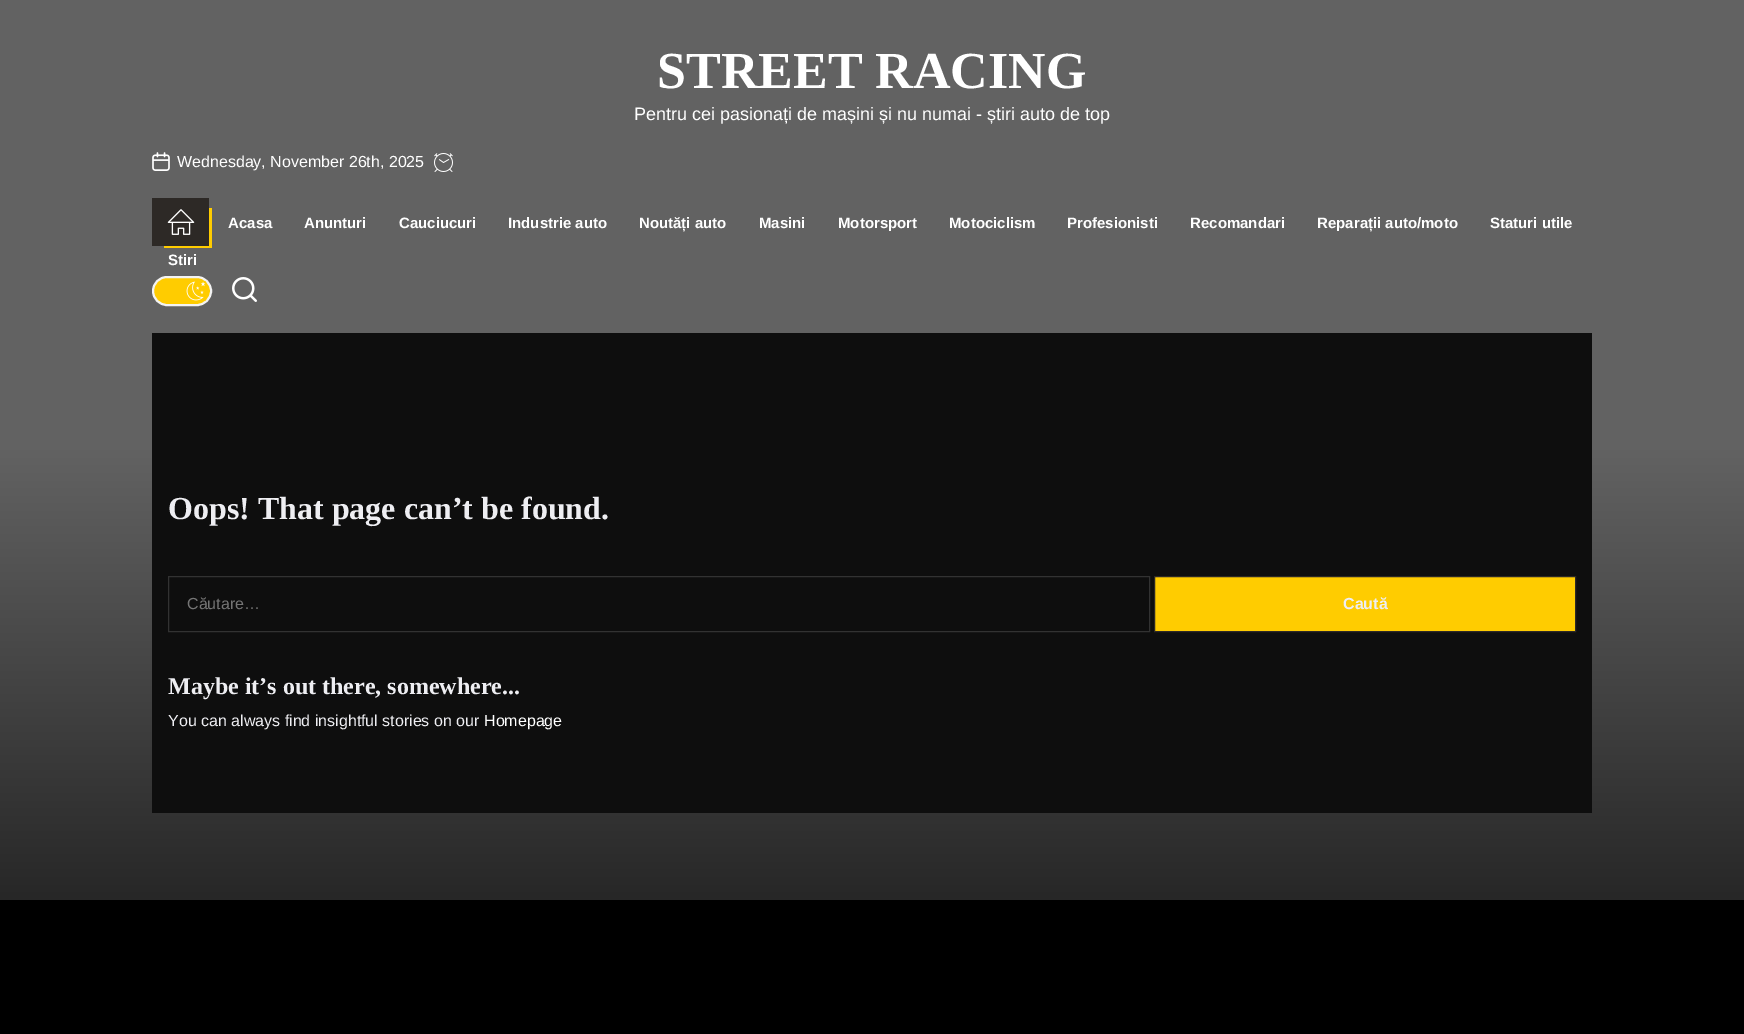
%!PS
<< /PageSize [1744 1034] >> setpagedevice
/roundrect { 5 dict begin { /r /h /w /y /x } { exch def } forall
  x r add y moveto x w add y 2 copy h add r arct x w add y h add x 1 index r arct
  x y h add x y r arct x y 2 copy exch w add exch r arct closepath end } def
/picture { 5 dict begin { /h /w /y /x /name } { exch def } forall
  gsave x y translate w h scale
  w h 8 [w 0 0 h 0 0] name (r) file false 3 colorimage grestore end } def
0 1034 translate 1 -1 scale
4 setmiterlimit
0 setgray
0 0 1744 1034 rectfill
gsave newpath 0 0 moveto 1744 0 lineto 1744 900 lineto 0 900 lineto closepath clip newpath
<< /ShadingType 2 /ColorSpace /DeviceRGB /Coords [872 0 872 900] /Extend [true true] /Function << /FunctionType 3 /Domain [0 1] /Functions [<< /FunctionType 2 /Domain [0 1] /C0 [0.384 0.384 0.384] /C1 [0.384 0.384 0.384] /N 1 >> << /FunctionType 2 /Domain [0 1] /C0 [0.384 0.384 0.384] /C1 [0.153 0.153 0.153] /N 1 >>] /Bounds [0.5] /Encode [0 1 0 1] >> >> shfill grestore
/LiberationSerif-Bold [52 0 0 -52 0 0] selectfont
1 setgray
657 88 moveto (STREET RACING) show
/LiberationSans-Regular [18 0 0 -18 0 0] selectfont
634 120 moveto (Pentru cei pasionați de mașini și nu numai - știri auto de top) show
(img1.rgb) 152 152 18 19 picture
/LiberationSans-Regular [16 0 0 -16 0 0] selectfont
177 167 moveto (Wednesday, November 26th, 2025) show
(img2.rgb) 434 153 19 19 picture
1 0.8 0 setrgbcolor
164 208 48 40 rectfill
0.176 0.161 0.149 setrgbcolor
152 198 57 48 rectfill
(img3.rgb) 167 209 28 26 picture
/LiberationSans-Bold [15 0 0 -15 0 0] selectfont
1 setgray
228 228 moveto (Acasa) show
304 228 moveto (Anunturi) show
399 228 moveto (Cauciucuri) show
508 228 moveto (Industrie auto) show
639 228 moveto (Noutăți auto) show
759 228 moveto (Masini) show
838 228 moveto (Motorsport) show
949 228 moveto (Motociclism) show
1067 228 moveto (Profesionisti) show
1190 228 moveto (Recomandari) show
1317 228 moveto (Reparații auto/moto) show
1490 228 moveto (Staturi utile) show
168 265 moveto (Stiri) show
1 0.8 0 setrgbcolor
153 277 58 28 14 roundrect gsave fill grestore
0.953 setgray
2 setlinewidth
stroke
(img4.rgb) 186 281 20 20 picture
(img5.rgb) 232 277 25 25 picture
0.055 setgray
152 333 1440 480 rectfill
/LiberationSerif-Bold [32 0 0 -32 0 0] selectfont
0.933 0.933 0.949 setrgbcolor
168 519 moveto (Oops! That page can’t be found.) show
0.196 setgray
1 setlinewidth
168.5 576.5 981 55 rectstroke
/LiberationSans-Regular [16 0 0 -16 0 0] selectfont
0.459 setgray
187 609 moveto (Căutare…) show
1 0.8 0 setrgbcolor
newpath 1154.5 576.5 moveto 1575.5 576.5 lineto 1575.5 631.5 lineto 1154.5 631.5 lineto closepath gsave fill grestore
0.176 0.161 0.149 setrgbcolor
stroke
/LiberationSans-Bold [16 0 0 -16 0 0] selectfont
0.933 0.933 0.949 setrgbcolor
1343 609 moveto (Caută) show
/LiberationSerif-Bold [24 0 0 -24 0 0] selectfont
168 694 moveto (Maybe it’s out there, somewhere...) show
/LiberationSans-Regular [16 0 0 -16 0 0] selectfont
168 726 moveto (You can always find insightful stories on our) show
1 setgray
484 726 moveto (Homepage) show
showpage
